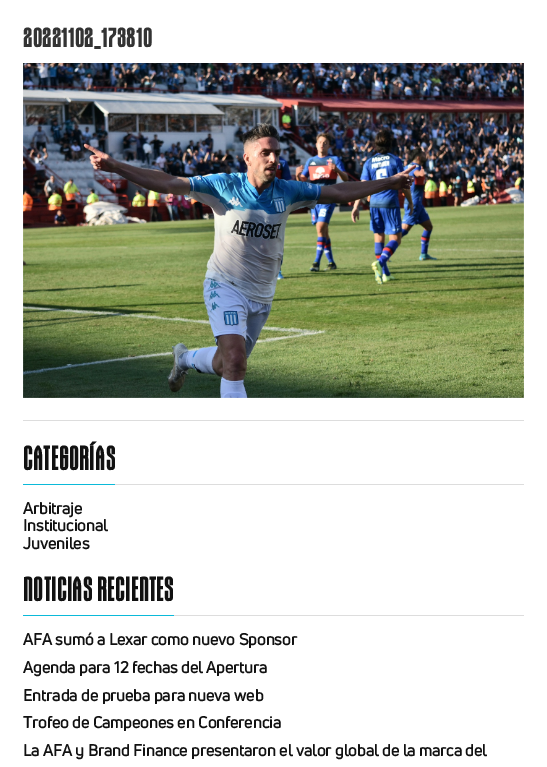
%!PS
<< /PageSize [547 767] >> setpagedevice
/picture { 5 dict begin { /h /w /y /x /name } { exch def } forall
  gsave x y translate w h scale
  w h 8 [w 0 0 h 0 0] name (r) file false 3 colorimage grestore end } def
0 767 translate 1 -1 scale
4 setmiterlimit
1 setgray
0 0 547 767 rectfill
/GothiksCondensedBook-Bold [30.5 0 0 -30.5 0 0] selectfont
0.2 setgray
23 47 moveto 1 0 (20221102_173810) ashow
(img1.rgb) 23 63 501 335 picture
0.867 setgray
23 420 501 1 rectfill
115 484 409 1 rectfill
0.043 0.729 0.851 setrgbcolor
23 484 92 1 rectfill
/GothiksCondensedBook-Bold [32 0 0 -32 0 0] selectfont
0.067 setgray
23 470 moveto 1 0 (CATEGORÍAS) ashow
/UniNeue-Bold [16 0 0 -16 0 0] selectfont
23 514 moveto (Arbitraje) show
23 531 moveto (Institucional) show
23 549 moveto (Juveniles) show
0.867 setgray
174 615 350 1 rectfill
0.043 0.729 0.851 setrgbcolor
23 615 151 1 rectfill
/GothiksCondensedBook-Bold [32 0 0 -32 0 0] selectfont
0.067 setgray
23 601 moveto 1 0 (NOTICIAS RECIENTES) ashow
/UniNeue-Bold [16 0 0 -16 0 0] selectfont
23 645 moveto (AFA sumó a Lexar como nuevo Sponsor) show
23 673 moveto (Agenda para 12 fechas del Apertura) show
23 701 moveto (Entrada de prueba para nueva web) show
23 728 moveto (Trofeo de Campeones en Conferencia) show
23 756 moveto (La AFA y Brand Finance presentaron el valor global de la marca del) show
showpage
